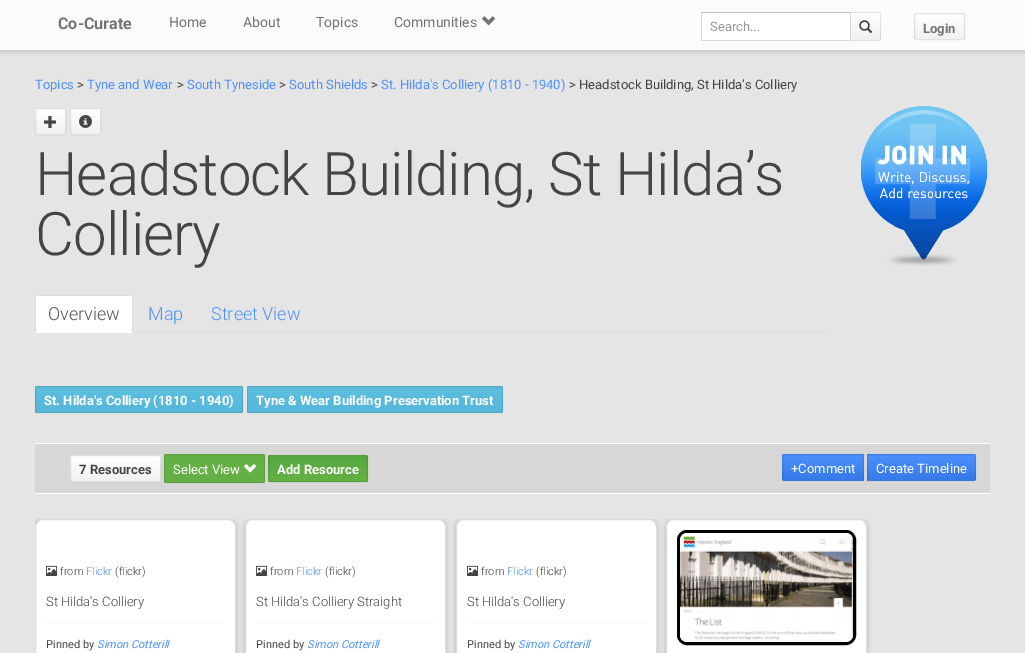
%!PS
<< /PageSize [1025 653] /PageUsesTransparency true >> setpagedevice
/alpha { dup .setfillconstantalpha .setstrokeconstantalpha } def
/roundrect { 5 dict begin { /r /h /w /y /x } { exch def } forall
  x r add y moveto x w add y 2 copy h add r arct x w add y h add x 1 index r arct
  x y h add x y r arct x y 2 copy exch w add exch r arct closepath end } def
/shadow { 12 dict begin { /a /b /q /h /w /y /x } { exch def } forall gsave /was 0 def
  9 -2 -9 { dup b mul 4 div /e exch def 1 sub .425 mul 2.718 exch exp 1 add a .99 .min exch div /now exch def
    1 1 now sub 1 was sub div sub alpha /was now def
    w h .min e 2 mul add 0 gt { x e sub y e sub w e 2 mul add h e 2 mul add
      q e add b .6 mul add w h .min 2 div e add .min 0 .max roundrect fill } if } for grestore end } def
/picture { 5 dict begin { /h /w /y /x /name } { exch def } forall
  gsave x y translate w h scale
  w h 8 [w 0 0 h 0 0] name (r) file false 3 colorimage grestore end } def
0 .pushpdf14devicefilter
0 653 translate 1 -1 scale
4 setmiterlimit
0.898 setgray
0 0 1025 653 rectfill
0 setgray
0 2 1025 50 0 2 0.15 shadow
0.984 setgray
0 0 1025 50 rectfill
/Roboto-Bold [16 0 0 -16 0 0] selectfont
0.451 setgray
58 29 moveto (Co-Curate) show
/Roboto-Regular [14 0 0 -14 0 0] selectfont
169 27 moveto (Home) show
243 27 moveto (About) show
316 27 moveto (Topics) show
394 27 moveto (Communities) show
(img1.rgb) 481 16 15 10 picture
1 setgray
newpath 702 12 moveto 851 12 lineto 851 41 lineto 702 41 lineto 701.5 41 701 40.5 701 40 curveto 701 13 lineto 701 12.5 701.5 12 702 12 curveto closepath fill
0.753 setgray
newpath 702 12 moveto 701 12 lineto 702 13 lineto 850 13 lineto 851 12 lineto closepath fill
0.851 setgray
newpath 851 12 moveto 850 13 lineto 850 40 lineto 851 41 lineto closepath fill
newpath 851 41 moveto 850 40 lineto 702 40 lineto 701 41 lineto 702 41 lineto closepath fill
newpath 702 13 moveto 701 12 lineto 701 41 lineto 702 40 lineto closepath fill
/Roboto-Regular [13 0 0 -13 0 0] selectfont
0.6 setgray
710 31 moveto (Search...) show
gsave newpath 851 13 moveto 881 13 lineto 881 40 lineto 851 40 lineto closepath clip newpath
<< /ShadingType 2 /ColorSpace /DeviceRGB /Coords [866 13 866 40] /Extend [true true] /Function << /FunctionType 2 /Domain [0 1] /C0 [1 1 1] /C1 [0.945 0.945 0.945] /N 1 >> >> shfill grestore
0.878 setgray
851 12 29 1 rectfill
0.1 alpha
0 setgray
880 13 1 27 rectfill
1 alpha
0.878 setgray
851 40 29 1 rectfill
(img2.rgb) 859 20 14 14 picture
gsave
914 13 51 27 2 roundrect clip newpath
gsave newpath 914 14 moveto 965 14 lineto 965 39 lineto 914 39 lineto closepath clip newpath
<< /ShadingType 2 /ColorSpace /DeviceRGB /Coords [940 14 940 39] /Extend [true true] /Function << /FunctionType 2 /Domain [0 1] /C0 [1 1 1] /C1 [0.945 0.945 0.945] /N 1 >> >> shfill grestore
grestore
0.1 alpha
0 setgray
914.5 13.5 50 26 1.5 roundrect stroke
/Roboto-Bold [13 0 0 -13 0 0] selectfont
1 alpha
0.451 setgray
923 33 moveto (Login) show
/Roboto-Regular [13 0 0 -13 0 0] selectfont
0.302 0.565 0.996 setrgbcolor
35 89 moveto (Topics) show
0.267 setgray
77 89 moveto (>) show
0.302 0.565 0.996 setrgbcolor
87 89 moveto (Tyne and Wear) show
0.267 setgray
177 89 moveto (>) show
0.302 0.565 0.996 setrgbcolor
187 89 moveto (South Tyneside) show
0.267 setgray
279 89 moveto (>) show
0.302 0.565 0.996 setrgbcolor
289 89 moveto (South Shields) show
0.267 setgray
371 89 moveto (>) show
0.302 0.565 0.996 setrgbcolor
381 89 moveto (St. Hilda's Colliery \(1810 - 1940\)) show
0.267 setgray
569 89 moveto (> Headstock Building, St Hilda’s Colliery) show
0.976 setgray
35 108 31 27 2 roundrect fill
gsave
35 108 31 27 2 roundrect clip newpath
gsave newpath 35 109 moveto 66 109 lineto 66 134 lineto 35 134 lineto closepath clip newpath
<< /ShadingType 2 /ColorSpace /DeviceRGB /Coords [51 109 51 134] /Extend [true true] /Function << /FunctionType 2 /Domain [0 1] /C0 [1 1 1] /C1 [0.945 0.945 0.945] /N 1 >> >> shfill grestore
grestore
0.1 alpha
0 setgray
35.5 108.5 30 26 1.5 roundrect stroke
1 alpha
(img3.rgb) 44 116 12 12 picture
0.976 setgray
70 108 31 27 2 roundrect fill
gsave
70 108 31 27 2 roundrect clip newpath
gsave newpath 70 109 moveto 101 109 lineto 101 134 lineto 70 134 lineto closepath clip newpath
<< /ShadingType 2 /ColorSpace /DeviceRGB /Coords [86 109 86 134] /Extend [true true] /Function << /FunctionType 2 /Domain [0 1] /C0 [1 1 1] /C1 [0.945 0.945 0.945] /N 1 >> >> shfill grestore
grestore
0.1 alpha
0 setgray
70.5 108.5 30 26 1.5 roundrect stroke
1 alpha
(img4.rgb) 79 115 13 13 picture
/Roboto-Light [60 0 0 -60 0 0] selectfont
0.267 setgray
35 195 moveto -1 0 (Headstock Building, St Hilda’s) ashow
35 255 moveto -1 0 (Colliery) ashow
0.867 setgray
133 332 693 1 rectfill
1 setgray
newpath 37 295 moveto 131 295 lineto 132 295 133 296 133 297 curveto 133 333 lineto 35 333 lineto 35 297 lineto 35 296 36 295 37 295 curveto closepath fill
0.867 setgray
newpath 37 295 moveto 36 296 lineto 37 296 lineto 132 296 lineto 131 295 lineto closepath fill
newpath 133 333 moveto 133 297 lineto 132.5 295.5 lineto 132 296 lineto 132 332 lineto closepath fill
newpath 35 333 moveto 36 332 lineto 36 297 lineto 36.5 296.5 lineto 35.5 295.5 lineto 35 297 lineto closepath fill
/Roboto-Light [18 0 0 -18 0 0] selectfont
0.333 setgray
48 320 moveto (Overview) show
0.302 0.565 0.996 setrgbcolor
148 320 moveto (Map) show
211 320 moveto (Street View) show
0.349 0.737 0.867 setrgbcolor
35 386 208 27 2 roundrect fill
gsave
35 386 208 27 2 roundrect clip newpath
gsave newpath 35 387 moveto 243 387 lineto 243 412 lineto 35 412 lineto closepath clip newpath
<< /ShadingType 2 /ColorSpace /DeviceRGB /Coords [139 387 139 412] /Extend [true true] /Function << /FunctionType 2 /Domain [0 1] /C0 [0.357 0.753 0.871] /C1 [0.341 0.714 0.859] /N 1 >> >> shfill grestore
grestore
0.1 alpha
0 setgray
35.5 386.5 207 26 1.5 roundrect stroke
/Roboto-Bold [13 0 0 -13 0 0] selectfont
1 alpha
1 setgray
44 405 moveto (St. Hilda's Colliery \(1810 - 1940\)) show
0.349 0.737 0.867 setrgbcolor
247 386 256 27 2 roundrect fill
gsave
247 386 256 27 2 roundrect clip newpath
gsave newpath 247 387 moveto 503 387 lineto 503 412 lineto 247 412 lineto closepath clip newpath
<< /ShadingType 2 /ColorSpace /DeviceRGB /Coords [375 387 375 412] /Extend [true true] /Function << /FunctionType 2 /Domain [0 1] /C0 [0.357 0.753 0.871] /C1 [0.341 0.714 0.859] /N 1 >> >> shfill grestore
grestore
0.1 alpha
0 setgray
247.5 386.5 255 26 1.5 roundrect stroke
1 alpha
1 setgray
256 405 moveto (Tyne & Wear Building Preservation Trust) show
(img5.rgb) 861 106 127 160 picture
0.843 setgray
35 444 955 49 rectfill
1 setgray
35 443 955 1 rectfill
35 493 955 1 rectfill
0.976 setgray
70 455 91 27 2 roundrect fill
gsave
70 455 91 27 2 roundrect clip newpath
gsave newpath 70 456 moveto 161 456 lineto 161 481 lineto 70 481 lineto closepath clip newpath
<< /ShadingType 2 /ColorSpace /DeviceRGB /Coords [116 456 116 481] /Extend [true true] /Function << /FunctionType 2 /Domain [0 1] /C0 [1 1 1] /C1 [0.945 0.945 0.945] /N 1 >> >> shfill grestore
grestore
0.1 alpha
0 setgray
70.5 455.5 90 26 1.5 roundrect stroke
1 alpha
0.267 setgray
79 474 moveto (7 Resources) show
0.396 0.69 0.271 setrgbcolor
164 454 101 29 2 roundrect fill
0.1 alpha
0 setgray
164.5 454.5 100 28 1.5 roundrect stroke
/Roboto-Regular [13 0 0 -13 0 0] selectfont
1 alpha
1 setgray
173 474 moveto (Select View) show
(img6.rgb) 243 464 14 9 picture
0.353 0.675 0.255 setrgbcolor
268 455 100 27 2 roundrect fill
gsave
268 455 100 27 2 roundrect clip newpath
gsave newpath 268 456 moveto 368 456 lineto 368 481 lineto 268 481 lineto closepath clip newpath
<< /ShadingType 2 /ColorSpace /DeviceRGB /Coords [318 456 318 481] /Extend [true true] /Function << /FunctionType 2 /Domain [0 1] /C0 [0.325 0.663 0.247] /C1 [0.396 0.69 0.271] /N 1 >> >> shfill grestore
grestore
0.1 alpha
0 setgray
268.5 455.5 99 26 1.5 roundrect stroke
/Roboto-Bold [13 0 0 -13 0 0] selectfont
1 alpha
1 setgray
277 474 moveto (Add Resource) show
0.263 0.529 0.961 setrgbcolor
newpath 784 454 moveto 864 454 lineto 864 481 lineto 784 481 lineto 783 481 782 480 782 479 curveto 782 456 lineto 782 455 783 454 784 454 curveto closepath fill
gsave newpath 782 455 moveto 864 455 lineto 864 480 lineto 782 480 lineto closepath clip newpath
<< /ShadingType 2 /ColorSpace /DeviceRGB /Coords [823 455 823 480] /Extend [true true] /Function << /FunctionType 2 /Domain [0 1] /C0 [0.302 0.565 0.996] /C1 [0.208 0.478 0.91] /N 1 >> >> shfill grestore
0.1 alpha
0 setgray
newpath 784 454.5 moveto 863.5 454.5 lineto 863.5 480.5 lineto 784 480.5 lineto 783 480.5 782.5 480 782.5 479 curveto 782.5 456 lineto 782.5 455 783 454.5 784 454.5 curveto closepath stroke
/Roboto-Regular [13 0 0 -13 0 0] selectfont
1 alpha
1 setgray
791 473 moveto (+Comment) show
0.263 0.529 0.961 setrgbcolor
newpath 867 454 moveto 974 454 lineto 975 454 976 455 976 456 curveto 976 479 lineto 976 480 975 481 974 481 curveto 867 481 lineto closepath fill
gsave newpath 867 455 moveto 976 455 lineto 976 480 lineto 867 480 lineto closepath clip newpath
<< /ShadingType 2 /ColorSpace /DeviceRGB /Coords [922 455 922 480] /Extend [true true] /Function << /FunctionType 2 /Domain [0 1] /C0 [0.302 0.565 0.996] /C1 [0.208 0.478 0.91] /N 1 >> >> shfill grestore
0.1 alpha
0 setgray
newpath 867.5 454.5 moveto 974 454.5 lineto 975 454.5 975.5 455 975.5 456 curveto 975.5 479 lineto 975.5 480 975 480.5 974 480.5 curveto 867.5 480.5 lineto closepath stroke
1 alpha
1 setgray
876 473 moveto (Create Timeline) show
gsave
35 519 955 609 rectclip
0 setgray
35 519 201 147 8 2.5 0.2 shadow
grestore
35.5 519.5 200 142 7.5 roundrect gsave fill grestore
0.867 setgray
stroke
(img7.rgb) 46 565 12 11 picture
/Roboto-Light [11 0 0 -11 0 0] selectfont
0.267 setgray
60 575 moveto (from) show
0.302 0.565 0.996 setrgbcolor
86 575 moveto (Flickr) show
0.267 setgray
115 575 moveto (\(flickr\)) show
/Roboto-Light [13 0 0 -13 0 0] selectfont
46 606 moveto (St Hilda's Colliery) show
0.961 setgray
46 622 179 1 rectfill
/Roboto-Regular [11 0 0 -11 0 0] selectfont
0.267 setgray
46 648 moveto (Pinned by) show
/Roboto-Italic [11 0 0 -11 0 0] selectfont
0.302 0.565 0.996 setrgbcolor
97 648 moveto (Simon Cotterill) show
gsave
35 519 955 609 rectclip
0 setgray
245 519 201 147 8 2.5 0.2 shadow
grestore
1 setgray
245.5 519.5 200 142 7.5 roundrect gsave fill grestore
0.867 setgray
stroke
(img7.rgb) 256 565 12 11 picture
/Roboto-Light [11 0 0 -11 0 0] selectfont
0.267 setgray
270 575 moveto (from) show
0.302 0.565 0.996 setrgbcolor
296 575 moveto (Flickr) show
0.267 setgray
325 575 moveto (\(flickr\)) show
/Roboto-Light [13 0 0 -13 0 0] selectfont
256 606 moveto (St Hilda's Colliery Straight) show
0.961 setgray
256 622 179 1 rectfill
/Roboto-Regular [11 0 0 -11 0 0] selectfont
0.267 setgray
256 648 moveto (Pinned by) show
/Roboto-Italic [11 0 0 -11 0 0] selectfont
0.302 0.565 0.996 setrgbcolor
307 648 moveto (Simon Cotterill) show
gsave
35 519 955 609 rectclip
0 setgray
456 519 201 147 8 2.5 0.2 shadow
grestore
1 setgray
456.5 519.5 200 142 7.5 roundrect gsave fill grestore
0.867 setgray
stroke
(img7.rgb) 467 565 12 11 picture
/Roboto-Light [11 0 0 -11 0 0] selectfont
0.267 setgray
481 575 moveto (from) show
0.302 0.565 0.996 setrgbcolor
507 575 moveto (Flickr) show
0.267 setgray
536 575 moveto (\(flickr\)) show
/Roboto-Light [13 0 0 -13 0 0] selectfont
467 606 moveto (St Hilda's Colliery) show
0.961 setgray
467 622 179 1 rectfill
/Roboto-Regular [11 0 0 -11 0 0] selectfont
0.267 setgray
467 648 moveto (Pinned by) show
/Roboto-Italic [11 0 0 -11 0 0] selectfont
0.302 0.565 0.996 setrgbcolor
518 648 moveto (Simon Cotterill) show
gsave
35 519 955 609 rectclip
0 setgray
666 519 201 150 8 2.5 0.2 shadow
grestore
1 setgray
666.5 519.5 200 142 7.5 roundrect gsave fill grestore
0.867 setgray
stroke
0 setgray
3 setlinewidth
678.5 531.5 176 112 8.5 roundrect stroke
(img8.rgb) 680 533 173 109 picture
.poppdf14devicefilter showpage
